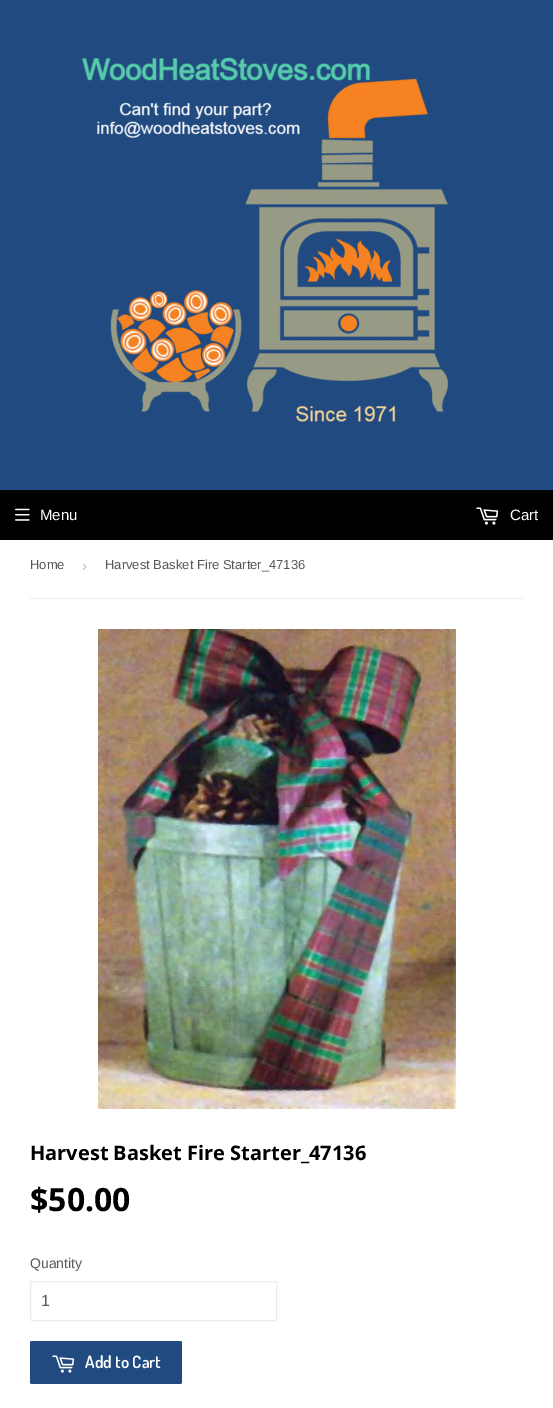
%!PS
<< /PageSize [553 1408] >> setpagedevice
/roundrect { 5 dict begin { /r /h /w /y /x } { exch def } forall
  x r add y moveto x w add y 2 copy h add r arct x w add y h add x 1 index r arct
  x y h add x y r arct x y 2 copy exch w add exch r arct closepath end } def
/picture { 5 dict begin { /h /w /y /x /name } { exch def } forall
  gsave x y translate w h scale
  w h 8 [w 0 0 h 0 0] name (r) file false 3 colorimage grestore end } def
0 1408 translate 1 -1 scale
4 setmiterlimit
1 setgray
0 0 553 1408 rectfill
0.125 0.29 0.502 setrgbcolor
0 0 553 490 rectfill
(img1.rgb) 81 57 368 365 picture
0 setgray
0 490 553 50 rectfill
(img2.rgb) 15 508 15 13 picture
/LiberationSans-Regular [15 0 0 -15 0 0] selectfont
1 setgray
40 520 moveto (Menu) show
(img3.rgb) 476 507 23 18 picture
510 520 moveto (Cart) show
0.925 setgray
30 598 493 1 rectfill
/LiberationSans-Regular [13 0 0 -13 0 0] selectfont
0.345 setgray
30 569 moveto (Home) show
/LiberationSans-Regular [15 0 0 -15 0 0] selectfont
0.733 setgray
82 571 moveto (›) show
/LiberationSans-Regular [13 0 0 -13 0 0] selectfont
0.345 setgray
105 569 moveto (Harvest Basket Fire Starter_47136) show
(img4.rgb) 98 629 358 480 picture
/OpenSans-Bold [20 0 0 -20 0 0] selectfont
0 setgray
30 1160 moveto (Harvest Basket Fire Starter_47136) show
/OpenSans-Bold [32 0 0 -32 0 0] selectfont
30 1211 moveto ($50.00) show
/LiberationSans-Regular [14 0 0 -14 0 0] selectfont
0.345 setgray
30 1268 moveto (Quantity) show
0.925 setgray
30.5 1281.5 246 39 1.5 roundrect stroke
/LiberationSans-Regular [16 0 0 -16 0 0] selectfont
0.345 setgray
41 1306 moveto (1) show
0.125 0.29 0.502 setrgbcolor
30 1341 152 43 2 roundrect fill
(img5.rgb) 52 1355 23 18 picture
/Dosis-SemiBold [17 0 0 -17 0 0] selectfont
1 setgray
85 1368 moveto (Add to Cart) show
showpage
